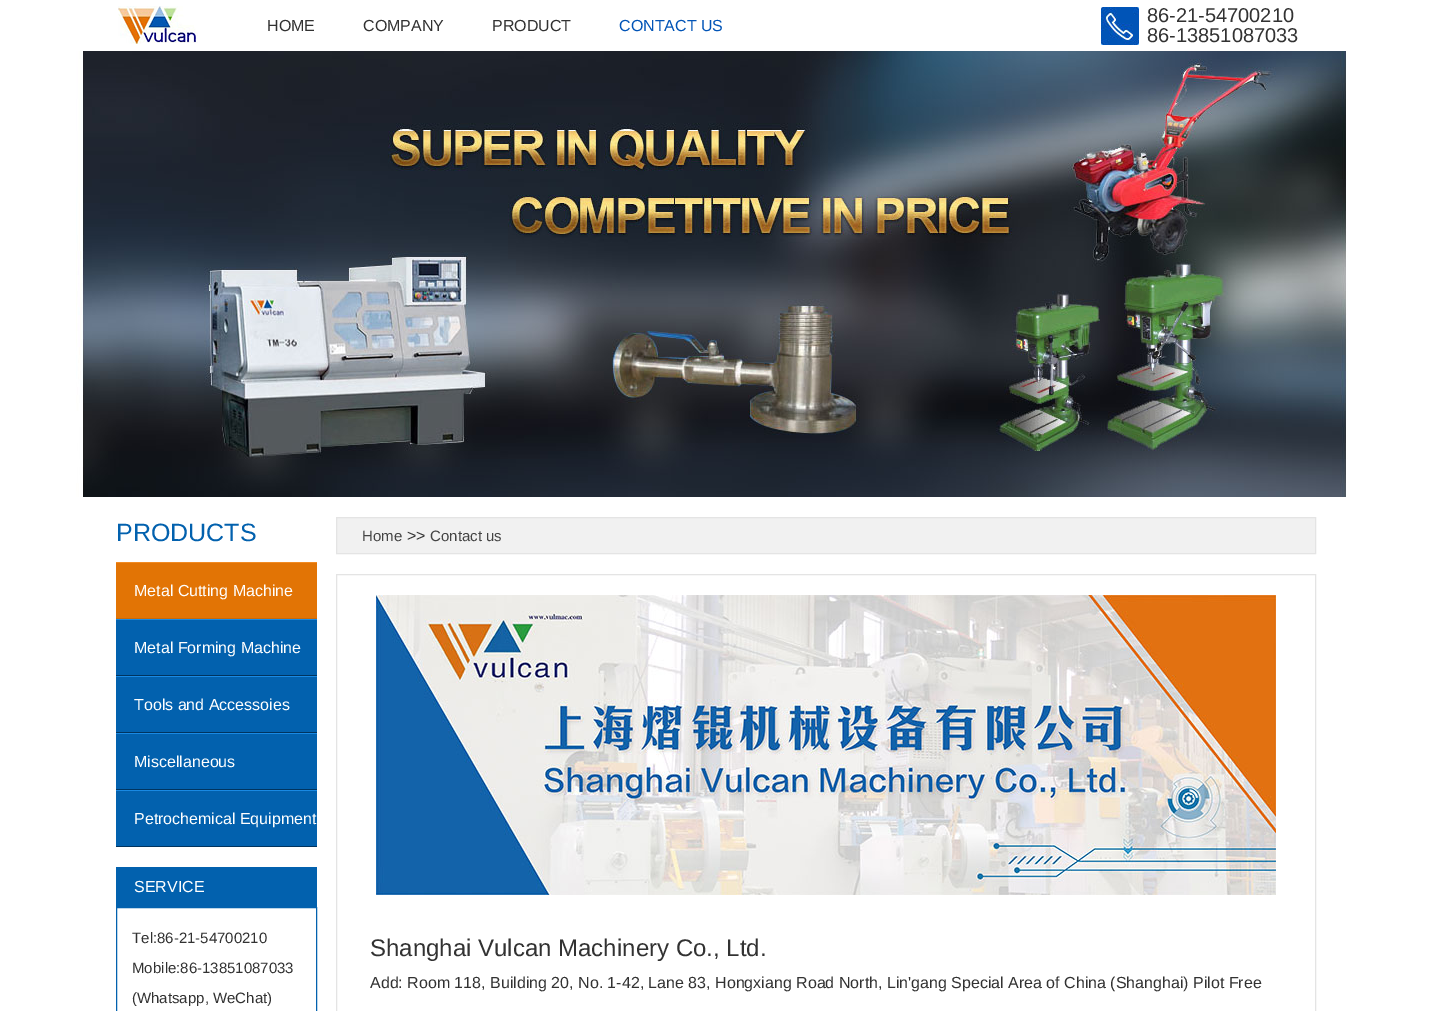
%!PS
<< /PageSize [1431 1011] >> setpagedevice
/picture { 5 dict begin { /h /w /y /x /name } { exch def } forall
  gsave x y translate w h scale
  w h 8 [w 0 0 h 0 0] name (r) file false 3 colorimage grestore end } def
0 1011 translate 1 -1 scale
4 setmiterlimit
1 setgray
0 0 1431 1011 rectfill
(img1.rgb) 118 6 80 38 picture
/LiberationSans-Regular [16 0 0 -16 0 0] selectfont
0.196 setgray
267 31 moveto (HOME) show
363 31 moveto (COMPANY) show
492 31 moveto (PRODUCT) show
0.004 0.329 0.718 setrgbcolor
619 31 moveto (CONTACT US) show
(img2.rgb) 1101 7 38 38 picture
/LiberationSans-Regular [20 0 0 -20 0 0] selectfont
0.196 setgray
1147 22 moveto (86-21-54700210) show
1147 42 moveto (86-13851087033) show
(img3.rgb) 76 51 1272 446 picture
/LiberationSans-Regular [25 0 0 -25 0 0] selectfont
0.008 0.38 0.682 setrgbcolor
116 541 moveto (PRODUCTS) show
0.886 0.455 0.02 setrgbcolor
116 563 201 55 rectfill
0.949 0.545 0.137 setrgbcolor
116 562 201 1 rectfill
0.792 0.416 0.035 setrgbcolor
116 618 201 1 rectfill
/LiberationSans-Regular [16 0 0 -16 0 0] selectfont
1 setgray
134 596 moveto (Metal Cutting Machine) show
0.008 0.38 0.682 setrgbcolor
116 620 201 55 rectfill
0.098 0.537 0.89 setrgbcolor
116 619 201 1 rectfill
0 0.204 0.373 setrgbcolor
116 675 201 1 rectfill
1 setgray
134 653 moveto (Metal Forming Machine) show
0.008 0.38 0.682 setrgbcolor
116 677 201 55 rectfill
0.098 0.537 0.89 setrgbcolor
116 676 201 1 rectfill
0 0.204 0.373 setrgbcolor
116 732 201 1 rectfill
1 setgray
134 710 moveto (Tools and Accessoies) show
0.008 0.38 0.682 setrgbcolor
116 734 201 55 rectfill
0.098 0.537 0.89 setrgbcolor
116 733 201 1 rectfill
0 0.204 0.373 setrgbcolor
116 789 201 1 rectfill
1 setgray
134 767 moveto (Miscellaneous) show
0.008 0.38 0.682 setrgbcolor
116 791 201 55 rectfill
0.098 0.537 0.89 setrgbcolor
116 790 201 1 rectfill
0 0.204 0.373 setrgbcolor
116 846 201 1 rectfill
1 setgray
134 824 moveto (Petrochemical Equipment) show
0.008 0.38 0.682 setrgbcolor
116 867 201 40 rectfill
1 setgray
134 892 moveto (SERVICE) show
0.008 0.38 0.682 setrgbcolor
116.5 907.5 200 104 rectstroke
/LiberationSans-Regular [15 0 0 -15 0 0] selectfont
0.196 setgray
132 943 moveto (Tel:86-21-54700210) show
132 973 moveto (Mobile:86-13851087033) show
132 1003 moveto (\(Whatsapp, WeChat\)) show
0.945 setgray
newpath 336.5 517.5 moveto 1315.5 517.5 lineto 1315.5 553.5 lineto 336.5 553.5 lineto closepath gsave fill grestore
0.894 setgray
stroke
0.267 setgray
362 541 moveto (Home) show
/LiberationSans-Regular [16 0 0 -16 0 0] selectfont
0.196 setgray
407 541 moveto (>>) show
/LiberationSans-Regular [15 0 0 -15 0 0] selectfont
0.267 setgray
430 541 moveto (Contact us) show
0.894 setgray
336.5 574.5 979 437 rectstroke
(img4.rgb) 376 595 900 300 picture
/LiberationSans-Regular [24 0 0 -24 0 0] selectfont
0.196 setgray
370 956 moveto (Shanghai Vulcan Machinery Co., Ltd.) show
/LiberationSans-Regular [16 0 0 -16 0 0] selectfont
370 988 moveto (Add: Room 118, Building 20, No. 1-42, Lane 83, Hongxiang Road North, Lin'gang Special Area of China \(Shanghai\) Pilot Free) show
showpage
